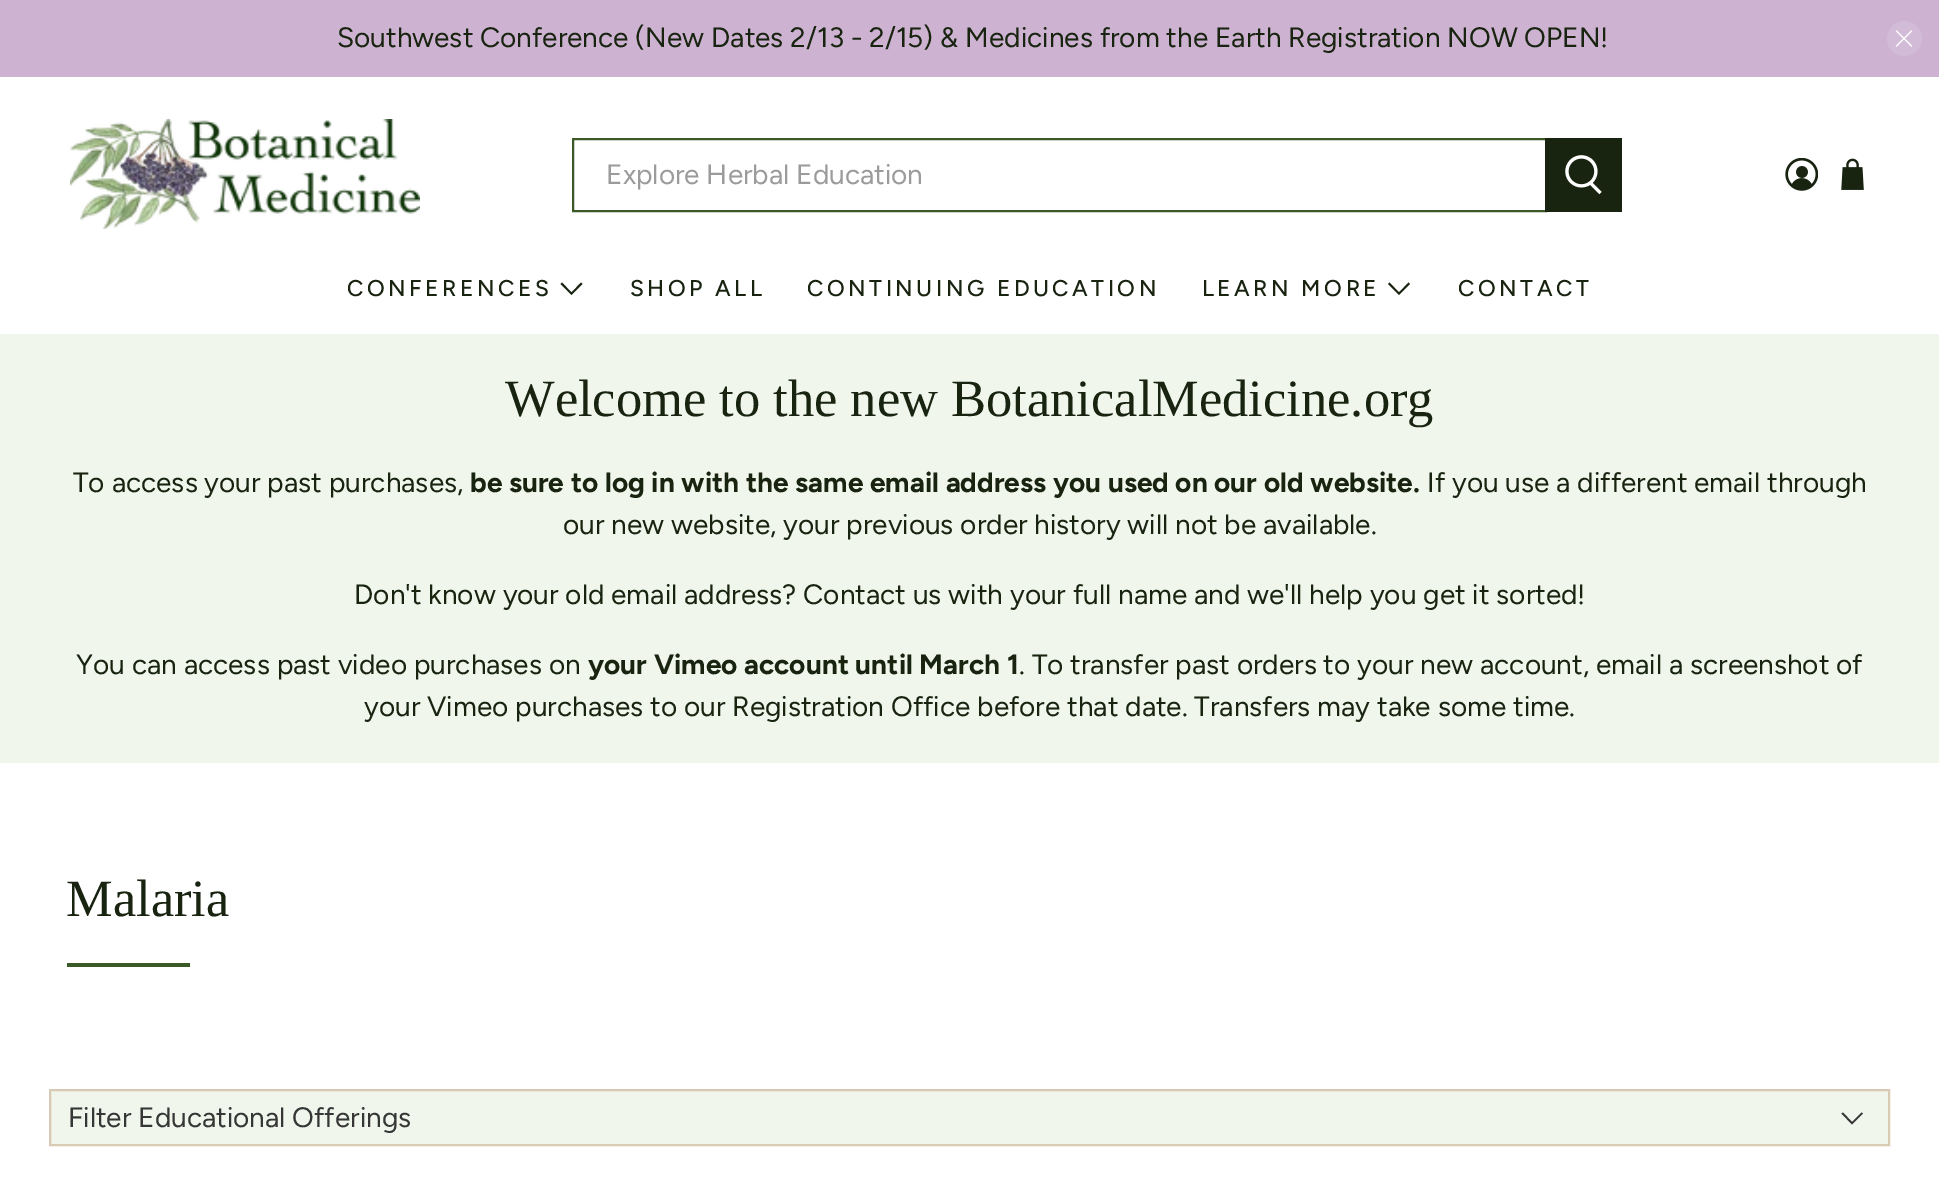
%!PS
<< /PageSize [1939 1180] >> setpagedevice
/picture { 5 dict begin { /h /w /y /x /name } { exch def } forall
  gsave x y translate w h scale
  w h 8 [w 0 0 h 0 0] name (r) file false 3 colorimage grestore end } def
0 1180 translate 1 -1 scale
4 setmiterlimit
1 setgray
0 0 1939 1180 rectfill
0.804 0.702 0.82 setrgbcolor
0 0 1939 77 rectfill
/Figtree-Regular [28 0 0 -28 0 0] selectfont
0.094 0.137 0.063 setrgbcolor
337 47 moveto (Southwest Conference \(New Dates 2/13 - 2/15\) & Medicines from the Earth Registration NOW OPEN!) show
0.824 0.733 0.839 setrgbcolor
newpath 1904.5 38.5 17.5 0 360 arc closepath fill
(img1.rgb) 1895 30 18 17 picture
(img2.rgb) 70 119 350 110 picture
0.235 0.349 0.157 setrgbcolor
2 setlinewidth
573 139 973 72 rectstroke
0.608 setgray
606 184 moveto (Explore Herbal Education) show
0.094 0.137 0.063 setrgbcolor
1545 138 77 74 rectfill
(img3.rgb) 1565 155 37 40 picture
(img4.rgb) 1785 158 33 33 picture
(img5.rgb) 1841 158 23 32 picture
/Figtree-Medium [22.75 0 0 -22.75 0 0] selectfont
347 296 moveto 3.5 0 (CONFERENCES) ashow
newpath 571.5 295 moveto 560.5 284 lineto 562 282.5 lineto 571.5 292.5 lineto 581 282.5 lineto 582.5 284 lineto closepath fill
630 296 moveto 3.5 0 (SHOP ALL) ashow
807 296 moveto 3.5 0 (CONTINUING EDUCATION) ashow
1202 296 moveto 3.5 0 (LEARN MORE) ashow
newpath 1399 295 moveto 1388 284 lineto 1389.5 282.5 lineto 1399 292.5 lineto 1408.5 282.5 lineto 1410 284 lineto closepath fill
1458 296 moveto 3.5 0 (CONTACT) ashow
0.941 0.965 0.925 setrgbcolor
0 334 1939 429 rectfill
/LiberationSerif-Regular [52.5 0 0 -52.5 0 0] selectfont
0.094 0.137 0.063 setrgbcolor
505 416 moveto (Welcome to the new BotanicalMedicine.org) show
/Figtree-Regular [28 0 0 -28 0 0] selectfont
73 492 moveto (To access your past purchases,) show
/Figtree-Bold [28 0 0 -28 0 0] selectfont
470 492 moveto (be sure to log in with the same email address you used on our old website.) show
/Figtree-Regular [28 0 0 -28 0 0] selectfont
1427 492 moveto (If you use a different email through) show
563 534 moveto (our new website, your previous order history will not be available.) show
354 604 moveto (Don't know your old email address? Contact us with your full name and we'll help you get it sorted!) show
76 674 moveto (You can access past video purchases on) show
/Figtree-Bold [28 0 0 -28 0 0] selectfont
588 674 moveto (your Vimeo account until March 1) show
/Figtree-Regular [28 0 0 -28 0 0] selectfont
1019 674 moveto (. To transfer past orders to your new account, email a screenshot of) show
364 716 moveto (your Vimeo purchases to our Registration Office before that date. Transfers may take some time.) show
/LiberationSerif-Regular [52.5 0 0 -52.5 0 0] selectfont
66 916 moveto (Malaria) show
0.235 0.349 0.157 setrgbcolor
67 963 123 4 rectfill
0.941 0.965 0.925 setrgbcolor
newpath 50 1090 moveto 1889 1090 lineto 1889 1145 lineto 50 1145 lineto closepath gsave fill grestore
0.851 0.796 0.702 setrgbcolor
stroke
/Figtree-Regular [28 0 0 -28 0 0] selectfont
0.212 setgray
68 1127 moveto (Filter Educational Offerings) show
newpath 1852 1124.5 moveto 1841.5 1113.5 lineto 1843 1112.5 lineto 1852 1122 lineto 1861.5 1112.5 lineto 1863 1113.5 lineto closepath fill
showpage
